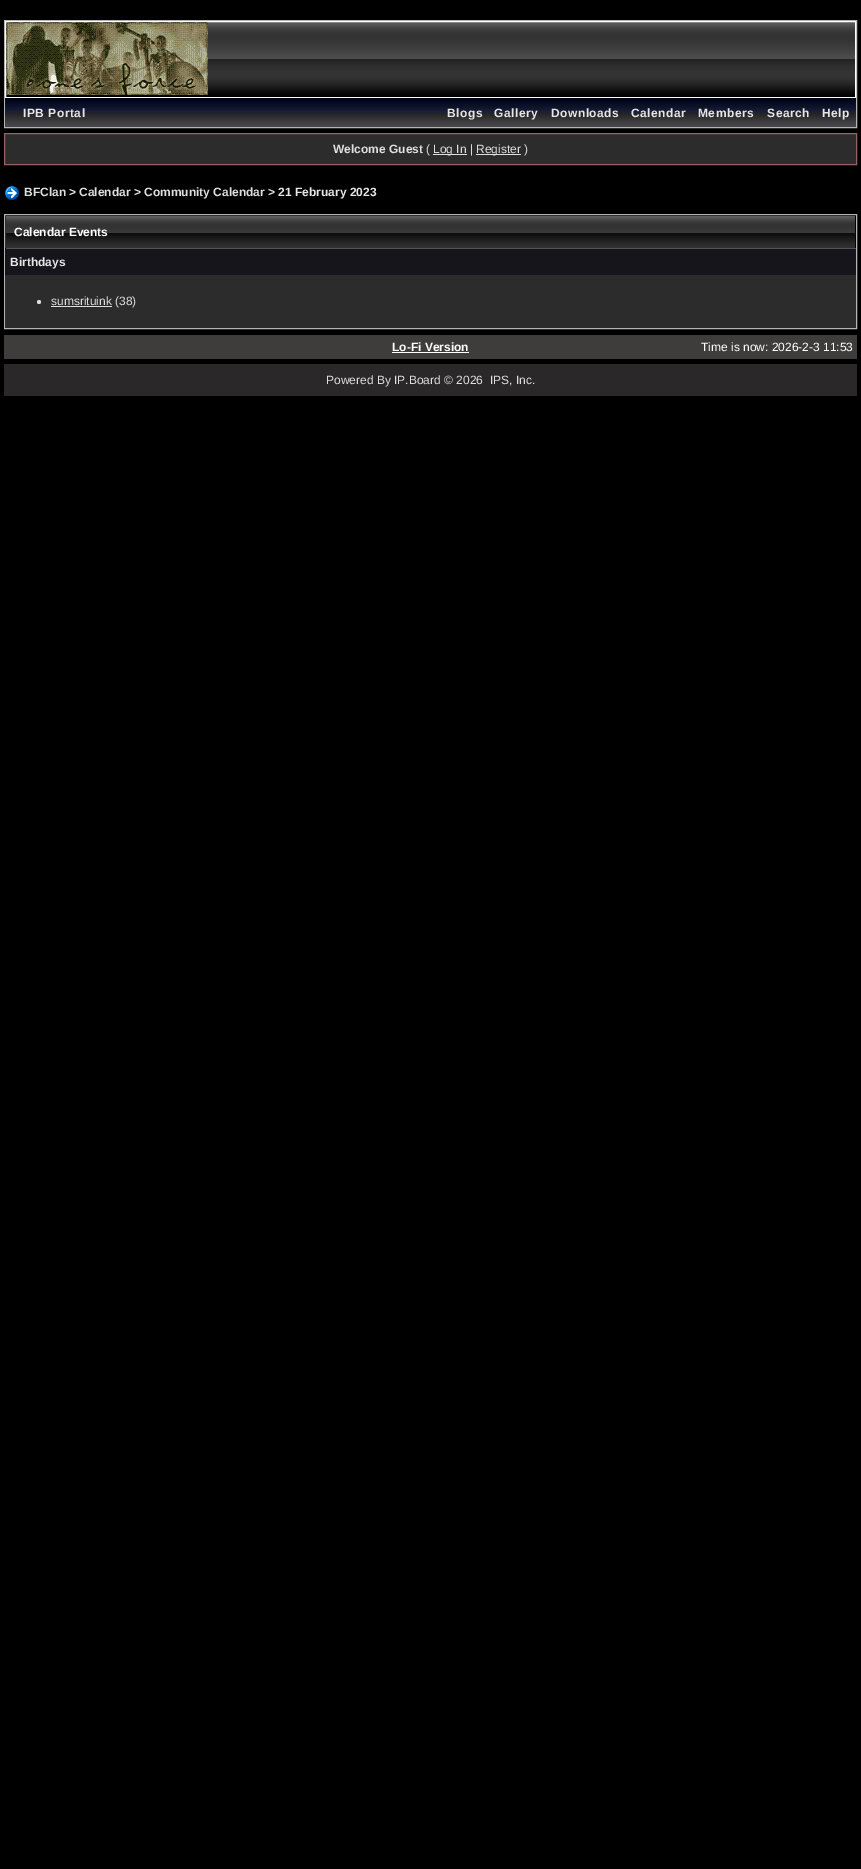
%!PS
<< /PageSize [861 1869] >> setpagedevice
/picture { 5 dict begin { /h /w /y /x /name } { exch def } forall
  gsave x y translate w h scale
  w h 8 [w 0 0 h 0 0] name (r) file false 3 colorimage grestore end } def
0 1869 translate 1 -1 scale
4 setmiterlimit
0 setgray
0 0 861 1869 rectfill
0.706 setgray
4.5 20.5 852 107 rectstroke
(img1.rgb) 6 22 849 75 picture
1 setgray
5.5 21.5 850 76 rectstroke
(img2.rgb) 6 22 202 73 picture
(img3.rgb) 5 98 851 29 picture
/LiberationSans-Bold [12 0 0 -12 0 0] selectfont
0.906 0.902 0.902 setrgbcolor
23 117 moveto 0.5 0 (IPB Portal) ashow
447 117 moveto 0.5 0 (Blogs) ashow
494 117 moveto 0.5 0 (Gallery) ashow
551 117 moveto 0.5 0 (Downloads) ashow
631 117 moveto 0.5 0 (Calendar) ashow
698 117 moveto 0.5 0 (Members) ashow
767 117 moveto 0.5 0 (Search) ashow
822 117 moveto 0.5 0 (Help) ashow
0.173 setgray
newpath 4.5 133.5 moveto 856.5 133.5 lineto 856.5 164.5 lineto 4.5 164.5 lineto closepath gsave fill grestore
0.596 0.384 0.396 setrgbcolor
stroke
0.871 setgray
333 153 moveto (Welcome Guest) show
/LiberationSans-Regular [12 0 0 -12 0 0] selectfont
426 153 moveto (\() show
433 154 34 1 rectfill
433 153 moveto (Log In |) show
476 154 45 1 rectfill
476 153 moveto (Register \)) show
(img4.rgb) 5 186 14 14 picture
/LiberationSans-Bold [12 0 0 -12 0 0] selectfont
24 196 moveto (BFClan) show
0.906 0.902 0.902 setrgbcolor
69 196 moveto (>) show
0.871 setgray
79 196 moveto (Calendar) show
0.906 0.902 0.902 setrgbcolor
134 196 moveto (>) show
0.871 setgray
144 196 moveto (Community Calendar) show
0.906 0.902 0.902 setrgbcolor
268 196 moveto (> 21 February 2023) show
0.706 setgray
4.5 214.5 852 114 rectstroke
(img5.rgb) 6 216 849 32 picture
0.322 setgray
5 248 851 1 rectfill
0 setgray
5 248 1 1 rectfill
1 setgray
14 236 moveto (Calendar Events) show
0.082 0.082 0.106 setrgbcolor
5 249 851 26 rectfill
0.906 0.902 0.902 setrgbcolor
10 266 moveto (Birthdays) show
0.173 setgray
5 275 851 53 rectfill
0.871 setgray
newpath 39 302 2 0 360 arc closepath fill
51 306 61 1 rectfill
/LiberationSans-Regular [12 0 0 -12 0 0] selectfont
51 305 moveto (sumsrituink \(38\)) show
0.247 0.235 0.235 setrgbcolor
4 335 853 24 rectfill
/LiberationSans-Bold [12 0 0 -12 0 0] selectfont
1 setgray
392 351 moveto (Lo-Fi Version) show
392 352 77 1 rectfill
/LiberationSans-Regular [12 0 0 -12 0 0] selectfont
701 351 moveto (Time is now: 2026-2-3 11:53) show
0.165 0.157 0.157 setrgbcolor
4 364 853 32 rectfill
0.871 setgray
326 384 moveto (Powered By IP.Board © 2026  IPS, Inc.) show
showpage
